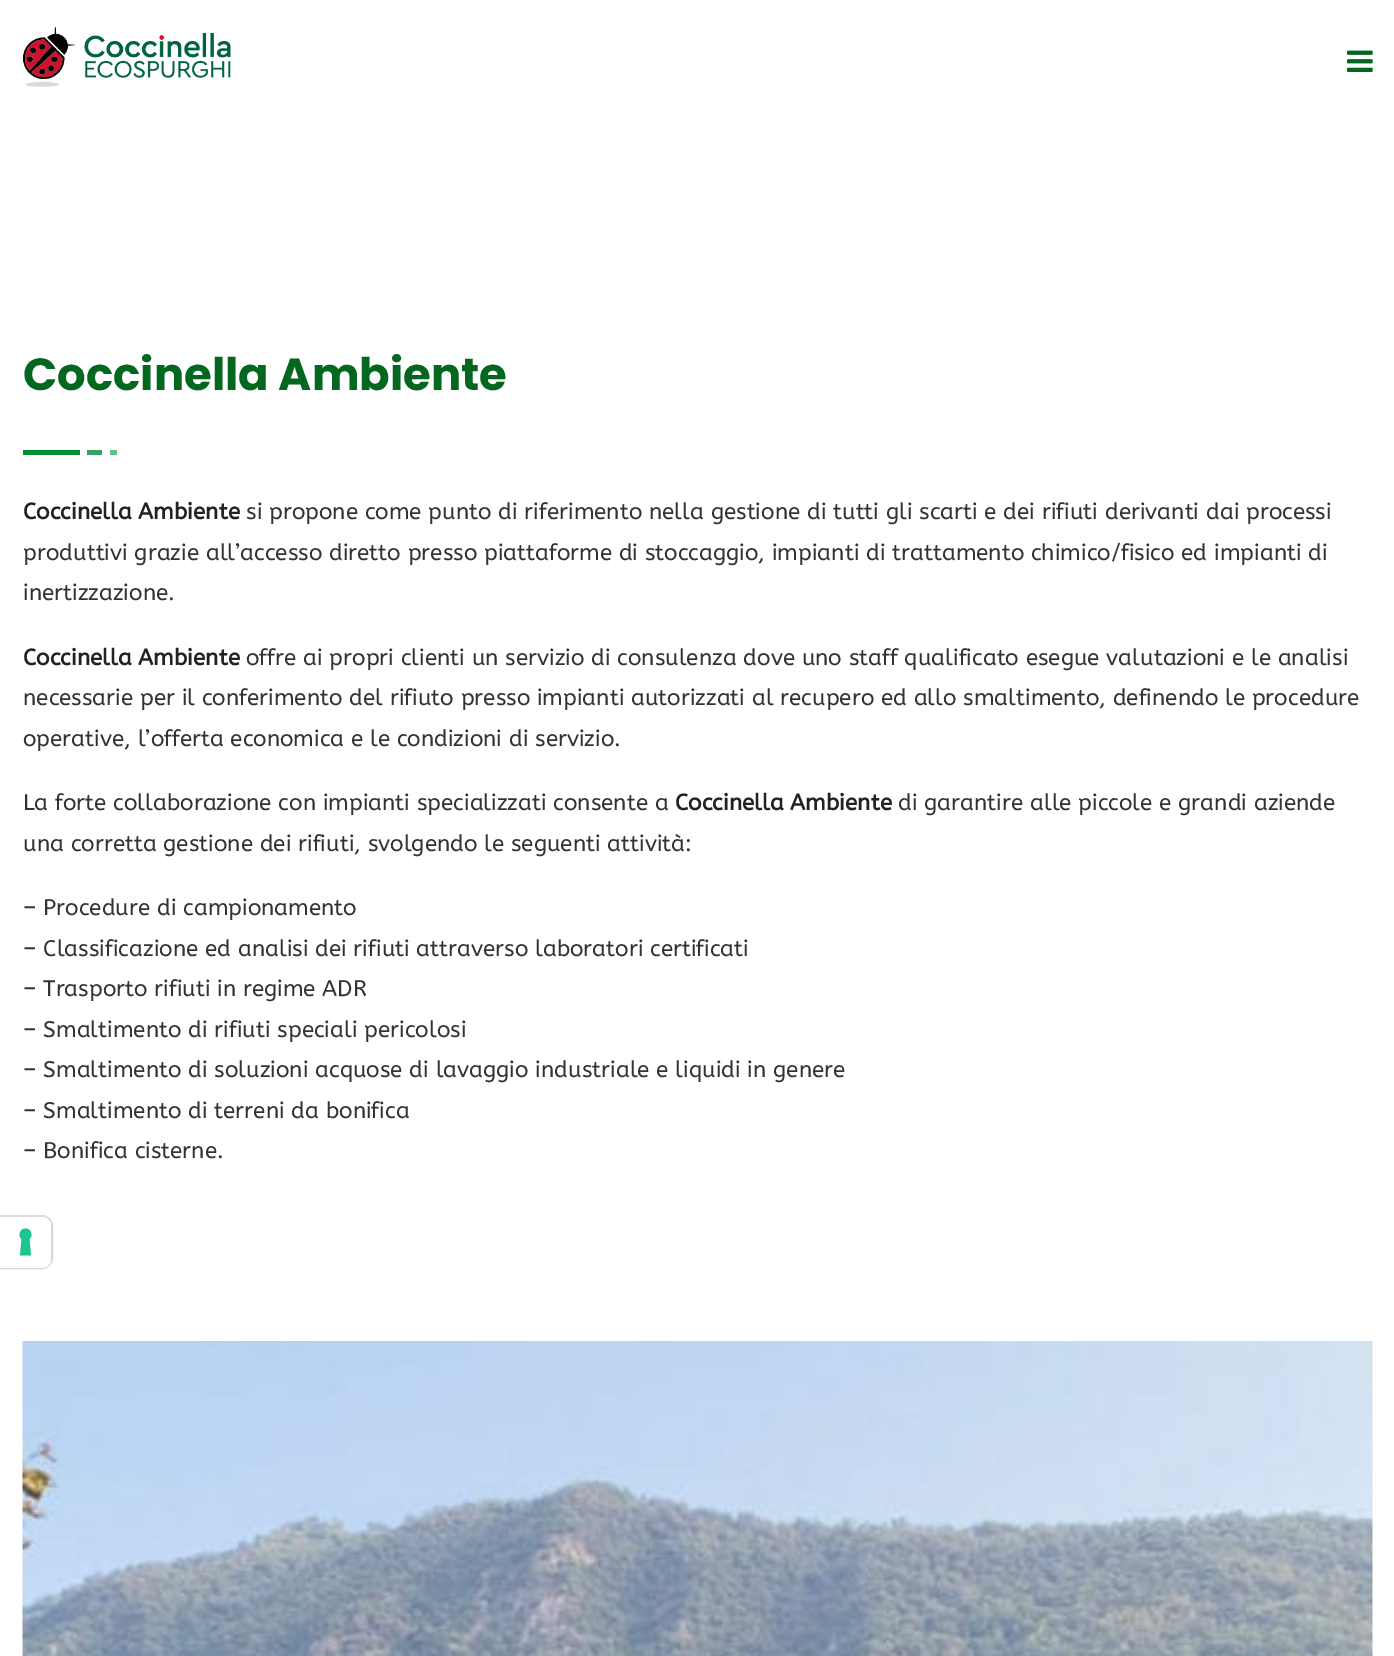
%!PS
<< /PageSize [1394 1656] >> setpagedevice
/picture { 5 dict begin { /h /w /y /x /name } { exch def } forall
  gsave x y translate w h scale
  w h 8 [w 0 0 h 0 0] name (r) file false 3 colorimage grestore end } def
0 1656 translate 1 -1 scale
4 setmiterlimit
1 setgray
0 0 1394 1656 rectfill
(img1.rgb) 22 27 209 60 picture
(img2.rgb) 1347 50 26 22 picture
/Poppins-Bold [45 0 0 -45 0 0] selectfont
0.012 0.404 0.125 setrgbcolor
23 390 moveto (Coccinella Ambiente) show
0 0.561 0.208 setrgbcolor
23 450 57 5 rectfill
0.2 0.647 0.365 setrgbcolor
87 450 15 5 rectfill
0.4 0.737 0.525 setrgbcolor
110 450 7 5 rectfill
/ABeeZee-Bold [22.5 0 0 -22.5 0 0] selectfont
0.133 setgray
23 519 moveto (Coccinella Ambiente) show
/ABeeZee-Regular [22.5 0 0 -22.5 0 0] selectfont
0.2 setgray
246 519 moveto (si propone come punto di riferimento nella gestione di tutti gli scarti e dei rifiuti derivanti dai processi) show
23 560 moveto (produttivi grazie all’accesso diretto presso piattaforme di stoccaggio, impianti di trattamento chimico/fisico ed impianti di) show
23 600 moveto (inertizzazione.) show
/ABeeZee-Bold [22.5 0 0 -22.5 0 0] selectfont
0.133 setgray
23 665 moveto (Coccinella Ambiente) show
/ABeeZee-Regular [22.5 0 0 -22.5 0 0] selectfont
0.2 setgray
246 665 moveto (offre ai propri clienti un servizio di consulenza dove uno staff qualificato esegue valutazioni e le analisi) show
23 705 moveto (necessarie per il conferimento del rifiuto presso impianti autorizzati al recupero ed allo smaltimento, definendo le procedure) show
23 746 moveto (operative, l’offerta economica e le condizioni di servizio.) show
23 810 moveto (La forte collaborazione con impianti specializzati consente a) show
/ABeeZee-Bold [22.5 0 0 -22.5 0 0] selectfont
0.133 setgray
675 810 moveto (Coccinella Ambiente) show
/ABeeZee-Regular [22.5 0 0 -22.5 0 0] selectfont
0.2 setgray
898 810 moveto (di garantire alle piccole e grandi aziende) show
23 851 moveto (una corretta gestione dei rifiuti, svolgendo le seguenti attività:) show
23 915 moveto (– Procedure di campionamento) show
23 956 moveto (– Classificazione ed analisi dei rifiuti attraverso laboratori certificati) show
23 996 moveto (– Trasporto rifiuti in regime ADR) show
23 1037 moveto (– Smaltimento di rifiuti speciali pericolosi) show
23 1077 moveto (– Smaltimento di soluzioni acquose di lavaggio industriale e liquidi in genere) show
23 1118 moveto (– Smaltimento di terreni da bonifica) show
23 1158 moveto (– Bonifica cisterne.) show
(img3.rgb) 22 1341 1351 315 picture
0.851 setgray
2 setlinewidth
newpath 0 1216 moveto 42 1216 lineto 47.5 1216 52 1220.5 52 1226 curveto 52 1258 lineto 52 1263.5 47.5 1268 42 1268 curveto 0 1268 lineto closepath stroke
1 setgray
newpath 0 1217 moveto 42 1217 lineto 47 1217 51 1221 51 1226 curveto 51 1259 lineto 51 1264 47 1268 42 1268 curveto 0 1268 lineto closepath fill
0.11 0.776 0.569 setrgbcolor
newpath 25.5 1228.5 moveto 31 1228.5 33.5 1235.5 29.5 1239 curveto 31 1255.5 lineto 20 1255.5 lineto 21.5 1239 lineto 17.5 1235.5 20 1228.5 25.5 1228.5 curveto closepath eofill
showpage
